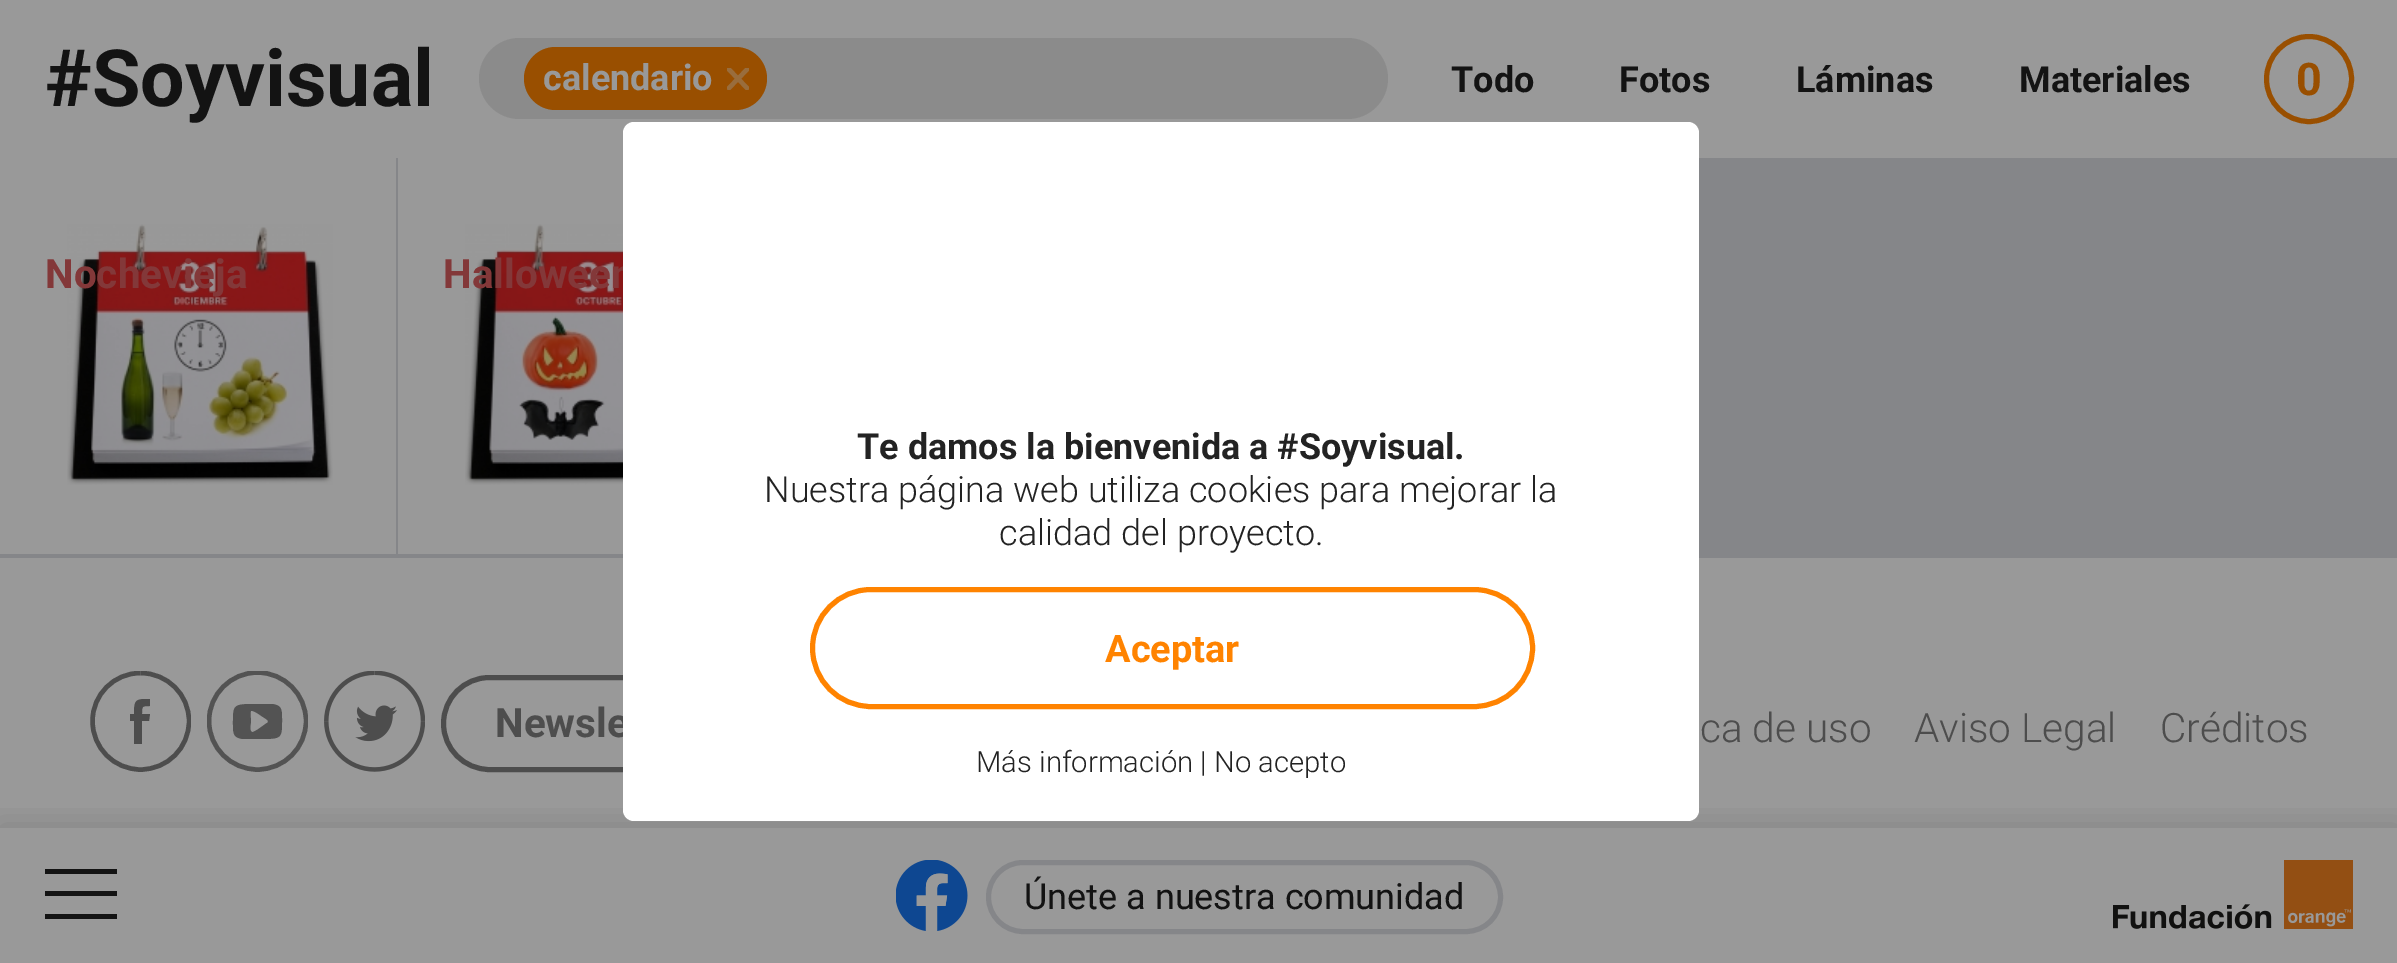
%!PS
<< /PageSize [2397 963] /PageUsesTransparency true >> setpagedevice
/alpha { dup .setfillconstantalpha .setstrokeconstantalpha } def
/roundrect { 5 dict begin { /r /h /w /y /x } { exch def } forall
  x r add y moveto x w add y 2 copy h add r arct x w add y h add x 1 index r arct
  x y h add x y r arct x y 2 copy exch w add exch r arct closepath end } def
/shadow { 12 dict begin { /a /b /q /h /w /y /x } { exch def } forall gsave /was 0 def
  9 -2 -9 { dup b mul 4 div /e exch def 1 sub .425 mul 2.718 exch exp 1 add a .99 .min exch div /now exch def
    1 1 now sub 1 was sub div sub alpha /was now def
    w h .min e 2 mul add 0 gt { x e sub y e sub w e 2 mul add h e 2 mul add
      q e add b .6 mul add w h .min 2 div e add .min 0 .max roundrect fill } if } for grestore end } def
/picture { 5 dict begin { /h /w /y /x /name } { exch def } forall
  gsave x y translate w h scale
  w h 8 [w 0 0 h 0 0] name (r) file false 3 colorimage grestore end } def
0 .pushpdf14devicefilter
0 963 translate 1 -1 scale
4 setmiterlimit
0.6 setgray
0 0 2397 963 rectfill
/Roboto-Bold [79 0 0 -79 0 0] selectfont
0.075 setgray
45 106 moveto (#Soyvisual) show
0.545 setgray
479 38 909 81 40.5 roundrect fill
0.6 0.31 0 setrgbcolor
524 47 243 63 31.5 roundrect fill
/Roboto-Bold [36 0 0 -36 0 0] selectfont
0.6 setgray
543 90 moveto (calendario) show
gsave
727 68 22 22 rectclip
0.6 0.427 0.239 setrgbcolor
4.4 setlinewidth
1 setlinecap
newpath 729 88 moveto 747 69.5 lineto 729 69.5 moveto 747 88 lineto stroke
grestore
0.075 setgray
1451 92 moveto (Todo) show
1619 92 moveto (Fotos) show
1796 92 moveto (Láminas) show
2019 92 moveto (Materiales) show
0.6 0.31 0 setrgbcolor
5 setlinewidth
newpath 2309 79 42.5 0 360 arc closepath stroke
/Roboto-Bold [45 0 0 -45 0 0] selectfont
2296 95 moveto (0) show
0.522 0.525 0.537 setrgbcolor
1699 158 698 400 rectfill
gsave
0 158 401 400 rectclip
newpath -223 -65 moveto 623 -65 lineto 623 781 lineto -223 781 lineto closepath 0 158 moveto 396 158 lineto 396 554 lineto 0 554 lineto closepath eofill
grestore
(img1.rgb) 67 224 266 261 picture
/Roboto-Bold [40.5 0 0 -40.5 0 0] selectfont
0.514 0.22 0.224 setrgbcolor
45 288 moveto (Nochevieja) show
0.6 setgray
398 158 3 396 rectfill
gsave
398 158 401 400 rectclip
0.522 0.525 0.537 setrgbcolor
newpath 176 -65 moveto 1022 -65 lineto 1022 781 lineto 176 781 lineto closepath 398 158 moveto 794 158 lineto 794 554 lineto 398 554 lineto closepath eofill
grestore
(img2.rgb) 465 224 158 261 picture
0.514 0.22 0.224 setrgbcolor
443 288 moveto (Halloween) show
gsave
90 671 101 101 rectclip
0.302 setgray
4.5 setlinewidth
newpath 140.5 673 moveto 167.5 673 189 694.5 189 721 curveto stroke
newpath 92.5 721 moveto 92.5 694.5 114 673 140.5 673 curveto stroke
newpath 189 721 moveto 189 748 167.5 769.5 140.5 769.5 curveto 114 769.5 92.5 748 92.5 721 curveto stroke
grestore
0.302 setgray
newpath 142 744 moveto 142 721 lineto 149 721 lineto 150 714 lineto 142 714 lineto 142 706 142 706 150 706 curveto 150 699 lineto 136 699 134 699 134 714 curveto 130 714 lineto 130 721 lineto 134 721 lineto 134 744 lineto closepath fill
0.325 setgray
newpath 282 717 moveto 282 709 281 705 272 704 curveto 258 704 lineto 232 704 233 704 233 726 curveto 233 734 234 738 243 739 curveto 258 739 lineto 283 739 282 739 282 717 curveto closepath 267 723 moveto 265 724 254 733 252 732 curveto 249 731 251 723 251 721 curveto 251 720 250 712 251 711 curveto 254 710 261 716 263 717 curveto 266 719 270 721 267 723 curveto closepath fill
gsave
207 671 101 101 rectclip
4.5 setlinewidth
newpath 257.5 721 48.5 0 360 arc closepath stroke
grestore
(img3.rgb) 324 671 101 101 picture
0.302 setgray
443.5 677.5 301 92 46 roundrect stroke
495 737 moveto (Newsle) show
/Roboto-Light [40.5 0 0 -40.5 0 0] selectfont
1700 742 moveto (ca de uso) show
1914 742 moveto (Aviso Legal) show
2160 742 moveto (Créditos) show
gsave
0 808 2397 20 rectclip
0.063 setgray
0 826 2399 135 0 16 0.15 shadow
grestore
0.075 setgray
45 891 72 5 rectfill
45 869 72 5 rectfill
45 914 72 5 rectfill
(img4.rgb) 896 860 72 71 picture
0.522 0.525 0.537 setrgbcolor
988.5 862.5 512 69 34.5 roundrect stroke
/Roboto-Regular [36 0 0 -36 0 0] selectfont
0.075 setgray
1024 909 moveto (Únete a nuestra comunidad) show
(img5.rgb) 2113 860 240 69 picture
1 setgray
623 122 1076 699 11 roundrect fill
/Roboto-Bold [36 0 0 -36 0 0] selectfont
0.137 setgray
857 459 moveto (Te damos la bienvenida a #Soyvisual.) show
/Roboto-Light [36 0 0 -36 0 0] selectfont
764 502 moveto (Nuestra página web utiliza cookies para mejorar la) show
999 545 moveto (calidad del proyecto.) show
/Roboto-Light [29.25 0 0 -29.25 0 0] selectfont
976 772 moveto (Más información | No acepto) show
1 0.514 0 setrgbcolor
812.5 589.5 720 117 58.5 roundrect stroke
/Roboto-Bold [38 0 0 -38 0 0] selectfont
1105 662 moveto (Aceptar) show
.poppdf14devicefilter showpage
